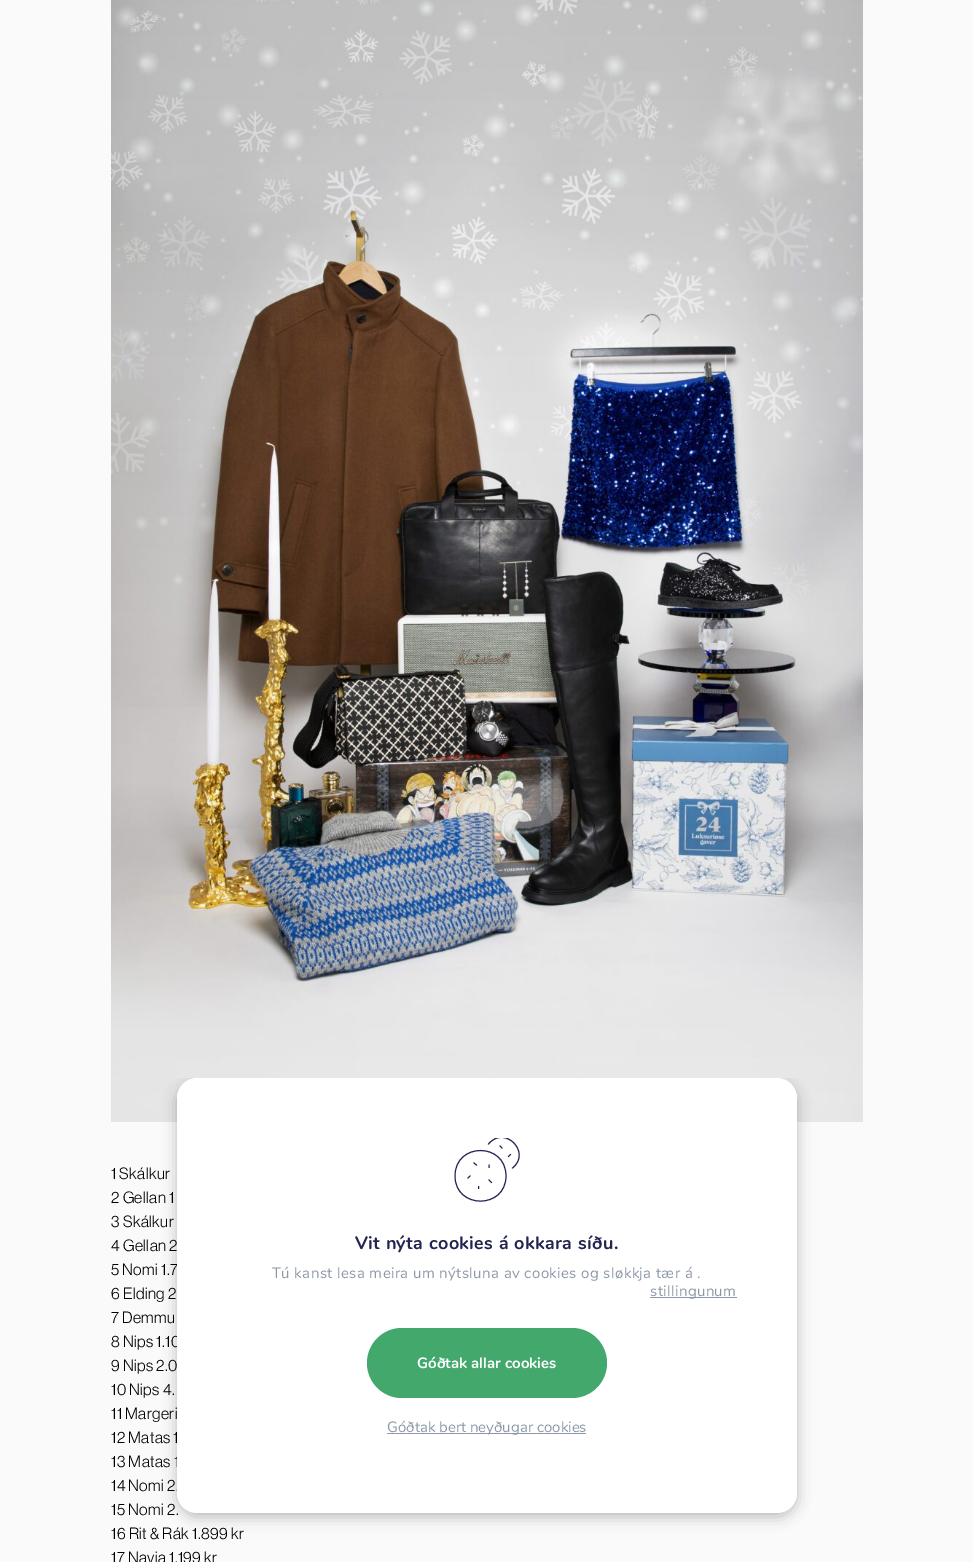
%!PS
<< /PageSize [973 1562] /PageUsesTransparency true >> setpagedevice
/alpha { dup .setfillconstantalpha .setstrokeconstantalpha } def
/roundrect { 5 dict begin { /r /h /w /y /x } { exch def } forall
  x r add y moveto x w add y 2 copy h add r arct x w add y h add x 1 index r arct
  x y h add x y r arct x y 2 copy exch w add exch r arct closepath end } def
/shadow { 12 dict begin { /a /b /q /h /w /y /x } { exch def } forall gsave /was 0 def
  9 -2 -9 { dup b mul 4 div /e exch def 1 sub .425 mul 2.718 exch exp 1 add a .99 .min exch div /now exch def
    1 1 now sub 1 was sub div sub alpha /was now def
    w h .min e 2 mul add 0 gt { x e sub y e sub w e 2 mul add h e 2 mul add
      q e add b .6 mul add w h .min 2 div e add .min 0 .max roundrect fill } if } for grestore end } def
/picture { 5 dict begin { /h /w /y /x /name } { exch def } forall
  gsave x y translate w h scale
  w h 8 [w 0 0 h 0 0] name (r) file false 3 colorimage grestore end } def
0 .pushpdf14devicefilter
0 1562 translate 1 -1 scale
4 setmiterlimit
0.98 setgray
0 0 973 1562 rectfill
(img1.rgb) 111 0 752 1122 picture
/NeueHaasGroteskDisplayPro-Light [16 0 0 -16 0 0] selectfont
0 setgray
111 1179 moveto 0.4 0 (1 Skálkur) ashow
111 1203 moveto 0.4 0 (2 Gellan 1) ashow
111 1227 moveto 0.4 0 (3 Skálkur) ashow
111 1251 moveto 0.4 0 (4 Gellan 2) ashow
111 1275 moveto 0.4 0 (5 Nomi 1.7) ashow
111 1299 moveto 0.4 0 (6 Elding 2) ashow
111 1323 moveto 0.4 0 (7 Demmu) ashow
111 1347 moveto 0.4 0 (8 Nips 1.10) ashow
111 1371 moveto 0.4 0 (9 Nips 2.0) ashow
111 1395 moveto 0.4 0 (10 Nips 4.) ashow
111 1419 moveto 0.4 0 (11 Margeri) ashow
111 1443 moveto 0.4 0 (12 Matas 1) ashow
111 1467 moveto 0.4 0 (13 Matas 1) ashow
111 1491 moveto 0.4 0 (14 Nomi 2.) ashow
111 1515 moveto 0.4 0 (15 Nomi 2.) ashow
111 1539 moveto 0.4 0 (16 Rit & Rák 1.899 kr) ashow
111 1563 moveto 0.4 0 (17 Navia 1.199 kr) ashow
gsave
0 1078 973 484 rectclip
177 1082 620 435 20 7 0.25 shadow
grestore
1 setgray
177 1078 620 435 20 roundrect fill
gsave
454 1138 66 64 rectclip
0.141 0.141 0.318 setrgbcolor
2 setlinecap
newpath 488.5 1144 moveto 504.5 1124.5 532 1152.5 512.5 1168 curveto 474 1163 moveto 476.5 1165 lineto 500 1146 moveto 502 1148 lineto 491.5 1182.5 moveto 489 1180 lineto 468 1178 moveto 470 1176 lineto 478.5 1188.5 moveto 478.5 1186.5 lineto 489 1167.5 moveto 489 1165 lineto 508.5 1156.5 moveto 510.5 1154.5 lineto 506 1176 moveto 506 1209.5 455 1209.5 455 1176 curveto 455 1142 506 1142 506 1176 curveto closepath stroke
grestore
/Nunito-Bold [18 0 0 -18 0 0] selectfont
0.141 0.141 0.318 setrgbcolor
355 1249 moveto 0.4 0 (Vit nýta cookies á okkara síðu.) ashow
/Nunito-Regular [15 0 0 -15 0 0] selectfont
0.553 0.596 0.655 setrgbcolor
272 1278 moveto 0.4 0 (Tú kanst lesa meira um nýtsluna av cookies og sløkkja tær á .) ashow
650 1297 87 1 rectfill
650 1296 moveto 0.4 0 (stillingunum) ashow
0.259 0.659 0.424 setrgbcolor
367 1328 240 70 35 roundrect fill
/Nunito-Bold [15 0 0 -15 0 0] selectfont
1 setgray
417 1368 moveto (Góðtak allar cookies) show
0.553 0.596 0.655 setrgbcolor
387 1433 199 1 rectfill
/Nunito-Regular [15 0 0 -15 0 0] selectfont
387 1432 moveto (Góðtak bert neyðugar cookies) show
.poppdf14devicefilter showpage
